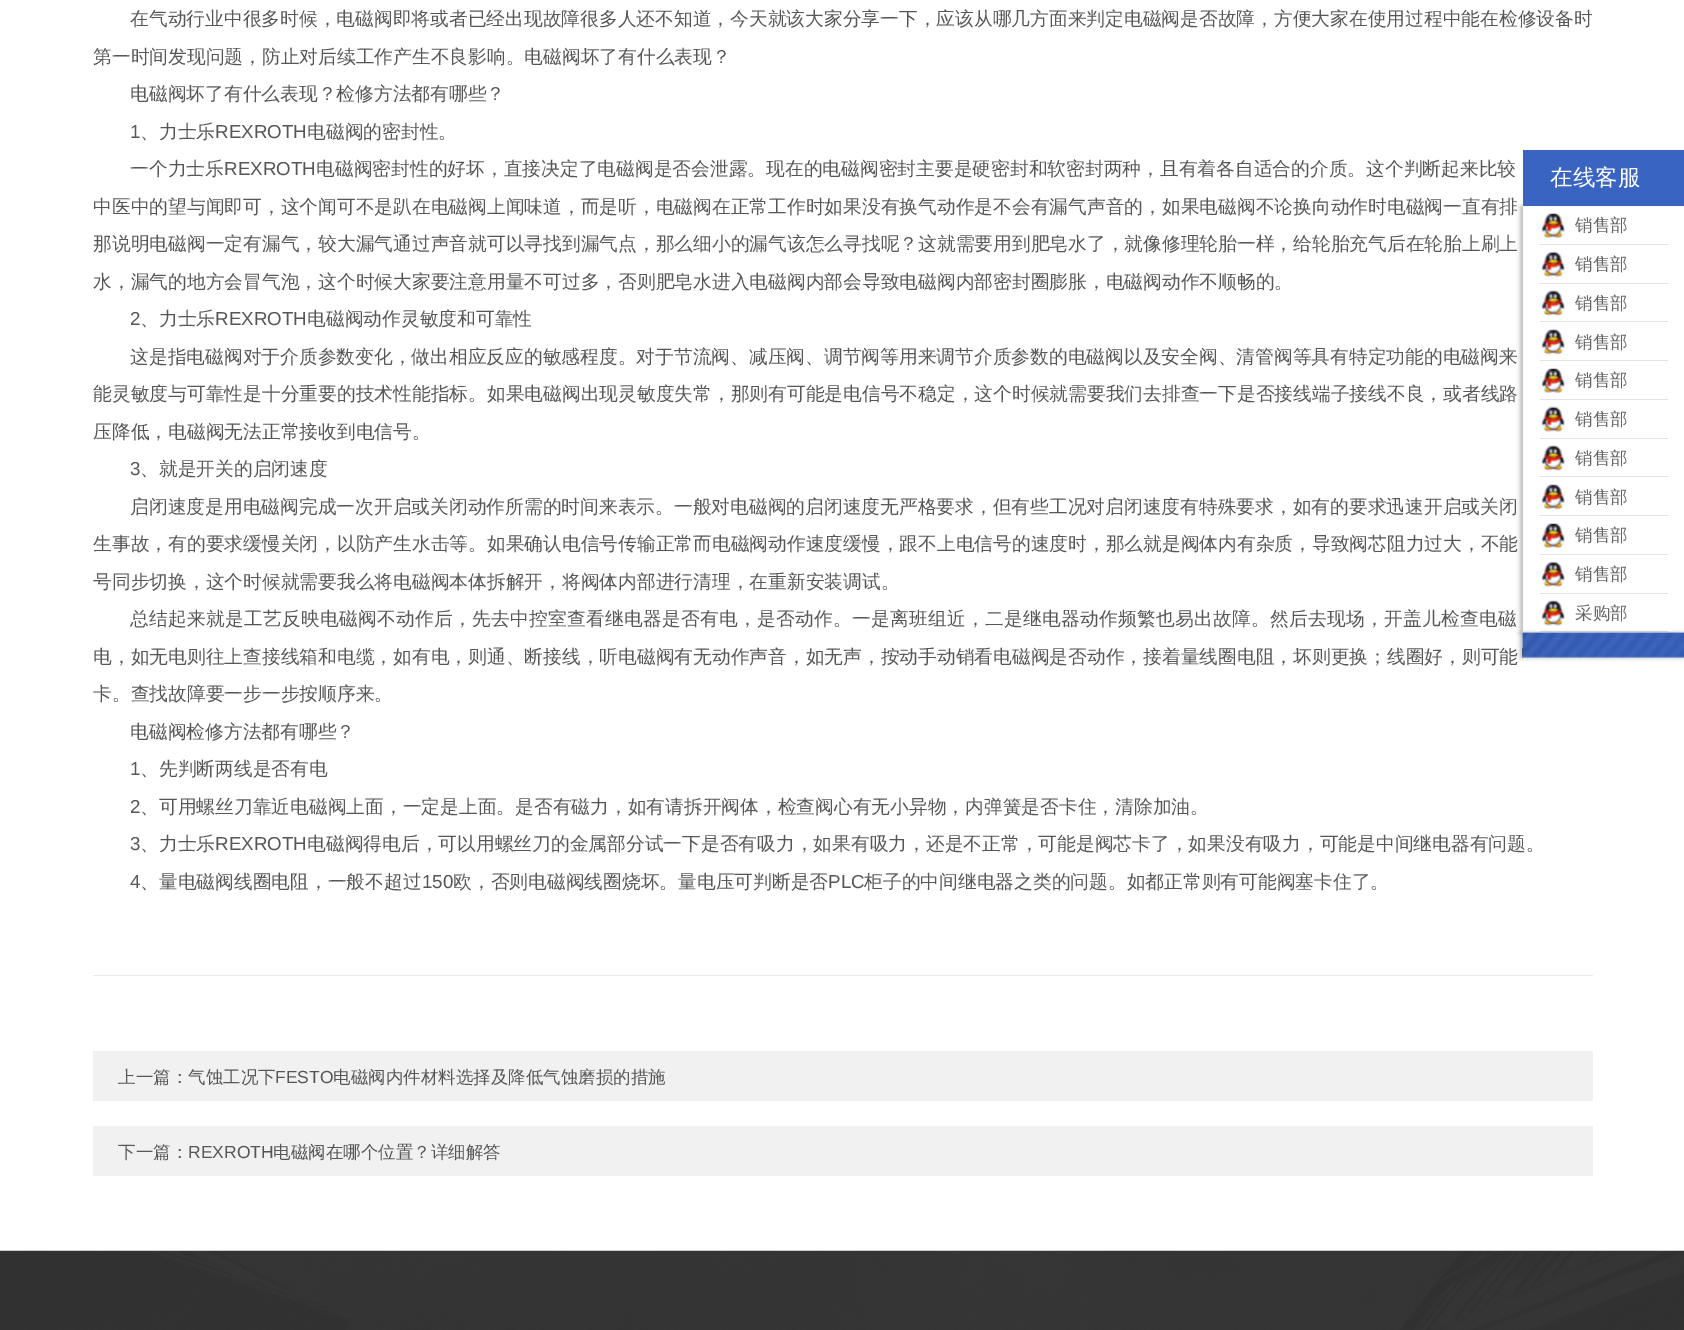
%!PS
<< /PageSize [1684 1330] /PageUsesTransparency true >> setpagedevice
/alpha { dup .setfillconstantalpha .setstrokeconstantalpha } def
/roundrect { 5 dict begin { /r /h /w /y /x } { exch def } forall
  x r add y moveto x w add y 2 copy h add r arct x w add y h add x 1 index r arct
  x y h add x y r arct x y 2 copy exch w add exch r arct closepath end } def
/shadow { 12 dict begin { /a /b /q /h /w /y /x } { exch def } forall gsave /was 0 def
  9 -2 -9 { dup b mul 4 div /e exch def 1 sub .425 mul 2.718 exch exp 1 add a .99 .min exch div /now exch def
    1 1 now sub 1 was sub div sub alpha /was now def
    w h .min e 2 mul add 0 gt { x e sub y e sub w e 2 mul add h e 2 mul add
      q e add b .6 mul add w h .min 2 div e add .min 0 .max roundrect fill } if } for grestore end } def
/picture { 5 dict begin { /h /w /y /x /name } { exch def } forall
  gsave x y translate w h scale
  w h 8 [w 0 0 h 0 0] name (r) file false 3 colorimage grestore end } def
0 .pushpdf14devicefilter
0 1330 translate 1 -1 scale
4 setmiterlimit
1 setgray
0 0 1684 1330 rectfill
0.918 setgray
93 975 1500 1 rectfill
/WenQuanYiZenHei-Medium [18.75 0 0 -18.75 0 0] selectfont
0.337 setgray
130 25 moveto (在气动行业中很多时候，电磁阀即将或者已经出现故障很多人还不知道，今天就该大家分享一下，应该从哪几方面来判定电磁阀是否故障，方便大家在使用过程中能在检修设备时) show
93 63 moveto (第一时间发现问题，防止对后续工作产生不良影响。电磁阀坏了有什么表现？) show
130 100 moveto (电磁阀坏了有什么表现？检修方法都有哪些？) show
/LiberationSans-Regular [18.75 0 0 -18.75 0 0] selectfont
130 138 moveto (1) show
/WenQuanYiZenHei-Medium [18.75 0 0 -18.75 0 0] selectfont
140 138 moveto (、力士乐) show
/LiberationSans-Regular [18.75 0 0 -18.75 0 0] selectfont
215 138 moveto (REXROTH) show
/WenQuanYiZenHei-Medium [18.75 0 0 -18.75 0 0] selectfont
307 138 moveto (电磁阀的密封性。) show
130 175 moveto (一个力士乐) show
/LiberationSans-Regular [18.75 0 0 -18.75 0 0] selectfont
224 175 moveto (REXROTH) show
/WenQuanYiZenHei-Medium [18.75 0 0 -18.75 0 0] selectfont
316 175 moveto (电磁阀密封性的好坏，直接决定了电磁阀是否会泄露。现在的电磁阀密封主要是硬密封和软密封两种，且有着各自适合的介质。这个判断起来比较) show
93 213 moveto (中医中的望与闻即可，这个闻可不是趴在电磁阀上闻味道，而是听，电磁阀在正常工作时如果没有换气动作是不会有漏气声音的，如果电磁阀不论换向动作时电磁阀一直有排) show
93 250 moveto (那说明电磁阀一定有漏气，较大漏气通过声音就可以寻找到漏气点，那么细小的漏气该怎么寻找呢？这就需要用到肥皂水了，就像修理轮胎一样，给轮胎充气后在轮胎上刷上) show
93 288 moveto (水，漏气的地方会冒气泡，这个时候大家要注意用量不可过多，否则肥皂水进入电磁阀内部会导致电磁阀内部密封圈膨胀，电磁阀动作不顺畅的。) show
/LiberationSans-Regular [18.75 0 0 -18.75 0 0] selectfont
130 325 moveto (2) show
/WenQuanYiZenHei-Medium [18.75 0 0 -18.75 0 0] selectfont
140 325 moveto (、力士乐) show
/LiberationSans-Regular [18.75 0 0 -18.75 0 0] selectfont
215 325 moveto (REXROTH) show
/WenQuanYiZenHei-Medium [18.75 0 0 -18.75 0 0] selectfont
307 325 moveto (电磁阀动作灵敏度和可靠性) show
130 363 moveto (这是指电磁阀对于介质参数变化，做出相应反应的敏感程度。对于节流阀、减压阀、调节阀等用来调节介质参数的电磁阀以及安全阀、清管阀等具有特定功能的电磁阀来) show
93 400 moveto (能灵敏度与可靠性是十分重要的技术性能指标。如果电磁阀出现灵敏度失常，那则有可能是电信号不稳定，这个时候就需要我们去排查一下是否接线端子接线不良，或者线路) show
93 438 moveto (压降低，电磁阀无法正常接收到电信号。) show
/LiberationSans-Regular [18.75 0 0 -18.75 0 0] selectfont
130 475 moveto (3) show
/WenQuanYiZenHei-Medium [18.75 0 0 -18.75 0 0] selectfont
140 475 moveto (、就是开关的启闭速度) show
130 513 moveto (启闭速度是用电磁阀完成一次开启或关闭动作所需的时间来表示。一般对电磁阀的启闭速度无严格要求，但有些工况对启闭速度有特殊要求，如有的要求迅速开启或关闭) show
93 550 moveto (生事故，有的要求缓慢关闭，以防产生水击等。如果确认电信号传输正常而电磁阀动作速度缓慢，跟不上电信号的速度时，那么就是阀体内有杂质，导致阀芯阻力过大，不能) show
93 588 moveto (号同步切换，这个时候就需要我么将电磁阀本体拆解开，将阀体内部进行清理，在重新安装调试。) show
130 625 moveto 0.25 0 (总结起来就是工艺反映电磁阀不动作后，先去中控室查看继电器是否有电，是否动作。一是离班组近，二是继电器动作频繁也易出故障。然后去现场，开盖儿检查电磁) ashow
93 663 moveto (电，如无电则往上查接线箱和电缆，如有电，则通、断接线，听电磁阀有无动作声音，如无声，按动手动销看电磁阀是否动作，接着量线圈电阻，坏则更换；线圈好，则可能) show
93 700 moveto (卡。查找故障要一步一步按顺序来。) show
130 738 moveto (电磁阀检修方法都有哪些？) show
/LiberationSans-Regular [18.75 0 0 -18.75 0 0] selectfont
130 775 moveto (1) show
/WenQuanYiZenHei-Medium [18.75 0 0 -18.75 0 0] selectfont
140 775 moveto (、先判断两线是否有电) show
/LiberationSans-Regular [18.75 0 0 -18.75 0 0] selectfont
130 813 moveto (2) show
/WenQuanYiZenHei-Medium [18.75 0 0 -18.75 0 0] selectfont
140 813 moveto (、可用螺丝刀靠近电磁阀上面，一定是上面。是否有磁力，如有请拆开阀体，检查阀心有无小异物，内弹簧是否卡住，清除加油。) show
/LiberationSans-Regular [18.75 0 0 -18.75 0 0] selectfont
130 850 moveto (3) show
/WenQuanYiZenHei-Medium [18.75 0 0 -18.75 0 0] selectfont
140 850 moveto (、力士乐) show
/LiberationSans-Regular [18.75 0 0 -18.75 0 0] selectfont
215 850 moveto (REXROTH) show
/WenQuanYiZenHei-Medium [18.75 0 0 -18.75 0 0] selectfont
307 850 moveto (电磁阀得电后，可以用螺丝刀的金属部分试一下是否有吸力，如果有吸力，还是不正常，可能是阀芯卡了，如果没有吸力，可能是中间继电器有问题。) show
/LiberationSans-Regular [18.75 0 0 -18.75 0 0] selectfont
130 888 moveto (4) show
/WenQuanYiZenHei-Medium [18.75 0 0 -18.75 0 0] selectfont
140 888 moveto (、量电磁阀线圈电阻，一般不超过) show
/LiberationSans-Regular [18.75 0 0 -18.75 0 0] selectfont
422 888 moveto (150) show
/WenQuanYiZenHei-Medium [18.75 0 0 -18.75 0 0] selectfont
453 888 moveto (欧，否则电磁阀线圈烧坏。量电压可判断是否) show
/LiberationSans-Regular [18.75 0 0 -18.75 0 0] selectfont
828 888 moveto (PLC) show
/WenQuanYiZenHei-Medium [18.75 0 0 -18.75 0 0] selectfont
864 888 moveto (柜子的中间继电器之类的问题。如都正常则有可能阀塞卡住了。) show
0.945 setgray
93 1051 1500 50 rectfill
/WenQuanYiZenHei-Medium [17.5 0 0 -17.5 0 0] selectfont
0.337 setgray
118 1083 moveto (上一篇：气蚀工况下) show
/LiberationSans-Regular [17.5 0 0 -17.5 0 0] selectfont
275 1083 moveto (FESTO) show
/WenQuanYiZenHei-Medium [17.5 0 0 -17.5 0 0] selectfont
333 1083 moveto (电磁阀内件材料选择及降低气蚀磨损的措施) show
0.945 setgray
93 1126 1500 50 rectfill
0.337 setgray
118 1158 moveto (下一篇：) show
/LiberationSans-Regular [17.5 0 0 -17.5 0 0] selectfont
188 1158 moveto (REXROTH) show
/WenQuanYiZenHei-Medium [17.5 0 0 -17.5 0 0] selectfont
273 1158 moveto (电磁阀在哪个位置？详细解答) show
0 setgray
1520 206 163 427 0 2 0.25 shadow
0.224 0.392 0.761 setrgbcolor
1523 150 161 56 rectfill
/WenQuanYiZenHei-Medium [22.5 0 0 -22.5 0 0] selectfont
1 setgray
1550 185 moveto (在线客服) show
1523 206 161 427 rectfill
0.89 setgray
1540 244 128 1 rectfill
(img1.rgb) 1541 213 24 25 picture
/WenQuanYiZenHei-Medium [17.5 0 0 -17.5 0 0] selectfont
0.4 setgray
1575 231 moveto (销售部) show
0.89 setgray
1540 283 128 1 rectfill
(img2.rgb) 1541 251 24 26 picture
0.4 setgray
1575 270 moveto (销售部) show
0.89 setgray
1540 321 128 1 rectfill
(img3.rgb) 1541 290 24 26 picture
0.4 setgray
1575 309 moveto (销售部) show
0.89 setgray
1540 360 128 1 rectfill
(img4.rgb) 1541 329 24 26 picture
0.4 setgray
1575 348 moveto (销售部) show
0.89 setgray
1540 399 128 1 rectfill
(img5.rgb) 1541 368 24 25 picture
0.4 setgray
1575 386 moveto (销售部) show
0.89 setgray
1540 438 128 1 rectfill
(img2.rgb) 1541 406 24 26 picture
0.4 setgray
1575 425 moveto (销售部) show
0.89 setgray
1540 476 128 1 rectfill
(img3.rgb) 1541 445 24 26 picture
0.4 setgray
1575 464 moveto (销售部) show
0.89 setgray
1540 515 128 1 rectfill
(img4.rgb) 1541 484 24 26 picture
0.4 setgray
1575 503 moveto (销售部) show
0.89 setgray
1540 554 128 1 rectfill
(img5.rgb) 1541 523 24 25 picture
0.4 setgray
1575 541 moveto (销售部) show
0.89 setgray
1540 593 128 1 rectfill
(img2.rgb) 1541 561 24 26 picture
0.4 setgray
1575 580 moveto (销售部) show
0.89 setgray
1540 631 128 1 rectfill
(img3.rgb) 1541 600 24 26 picture
0.4 setgray
1575 619 moveto (采购部) show
0 setgray
1520 633 163 25 0 2 0.25 shadow
(img6.rgb) 1522 631 162 27 picture
(img7.rgb) 0 1250 1684 80 picture
.poppdf14devicefilter showpage
